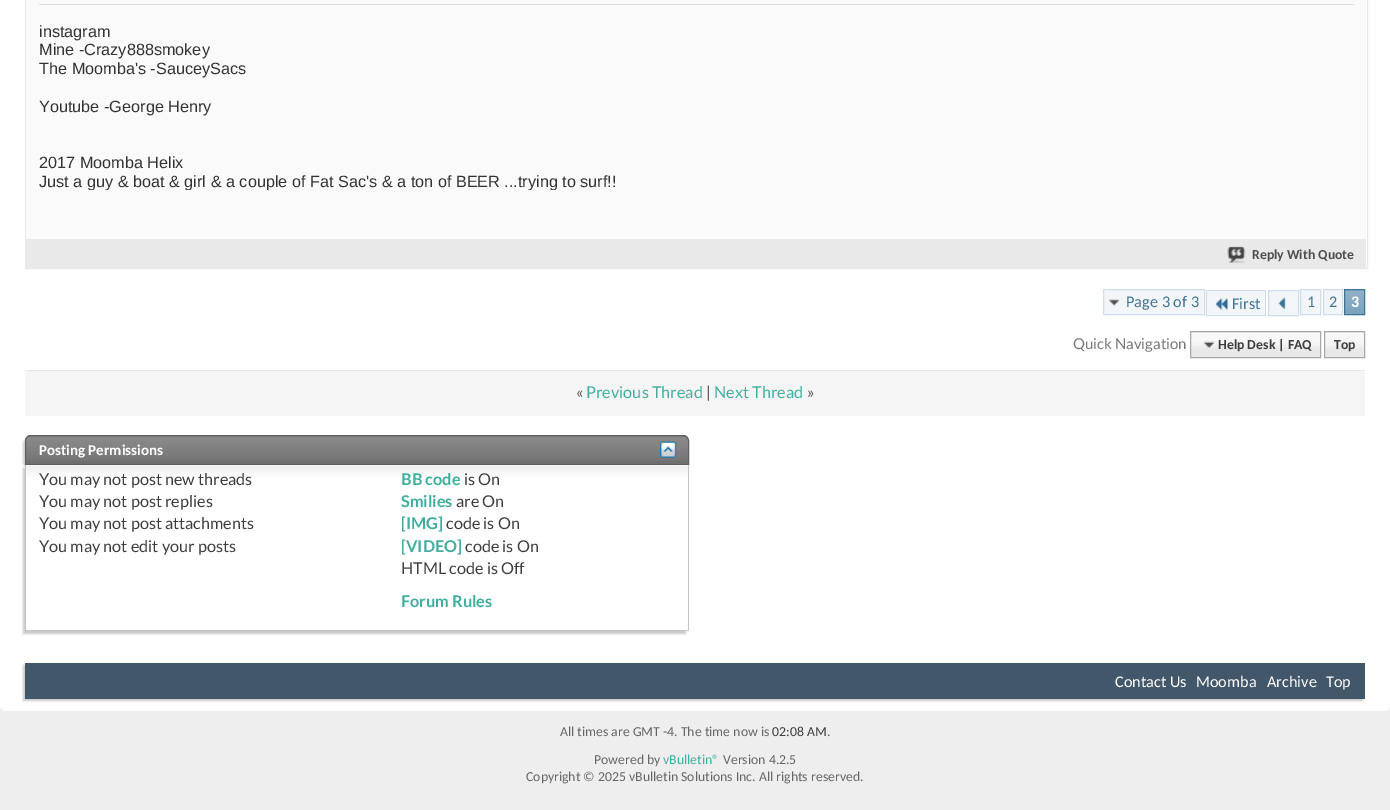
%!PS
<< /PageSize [1390 810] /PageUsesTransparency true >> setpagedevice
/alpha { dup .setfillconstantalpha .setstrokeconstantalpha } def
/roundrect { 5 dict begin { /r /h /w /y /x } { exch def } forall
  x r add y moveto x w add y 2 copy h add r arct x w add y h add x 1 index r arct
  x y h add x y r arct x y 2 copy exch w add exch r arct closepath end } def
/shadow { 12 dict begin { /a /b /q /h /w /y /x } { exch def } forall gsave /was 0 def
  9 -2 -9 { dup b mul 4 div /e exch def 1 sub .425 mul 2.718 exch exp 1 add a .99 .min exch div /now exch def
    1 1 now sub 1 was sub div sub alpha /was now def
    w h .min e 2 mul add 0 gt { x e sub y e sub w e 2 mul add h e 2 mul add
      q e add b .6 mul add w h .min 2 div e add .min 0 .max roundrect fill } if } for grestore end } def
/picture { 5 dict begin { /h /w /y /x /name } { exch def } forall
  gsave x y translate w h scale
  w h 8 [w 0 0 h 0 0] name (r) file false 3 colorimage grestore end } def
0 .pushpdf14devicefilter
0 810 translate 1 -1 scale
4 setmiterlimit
0.933 setgray
0 0 1390 810 rectfill
1 setgray
0 -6 1390 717 6 roundrect fill
0.914 setgray
25.5 -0.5 1342 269 rectstroke
0.98 setgray
26 0 1340 239 rectfill
0.867 setgray
39 4 1315 1 rectfill
/LiberationSans-Regular [16.25 0 0 -16.25 0 0] selectfont
0.2 setgray
39 37 moveto (instagram) show
39 55 moveto (Mine -Crazy888smokey) show
39 74 moveto (The Moomba's -SauceySacs) show
39 112 moveto (Youtube -George Henry) show
39 168 moveto (2017 Moomba Helix) show
gsave
39 5 1315 185 rectclip
39 187 moveto (Just a guy & boat & girl & a couple of Fat Sac's & a ton of BEER ...trying to surf!!) show
grestore
0.914 setgray
26 239 1340 29 rectfill
(img1.rgb) 1227 246 19 17 picture
/Carlito-Bold [13.75 0 0 -13.75 0 0] selectfont
0.306 setgray
1252 259 moveto (Reply With Quote) show
0.949 0.965 0.973 setrgbcolor
1104 290 100 24 rectfill
(img2.rgb) 1108 299 12 7 picture
0.808 0.875 0.922 setrgbcolor
1103.5 289.5 101 25 rectstroke
/Carlito-Regular [16.25 0 0 -16.25 0 0] selectfont
0.255 0.451 0.58 setrgbcolor
1126 307 moveto (Page 3 of 3) show
0.949 0.965 0.973 setrgbcolor
1207 291 58 24 rectfill
(img3.rgb) 1215 297 13 14 picture
0.255 0.451 0.58 setrgbcolor
1232 309 moveto (First) show
0.808 0.875 0.922 setrgbcolor
1206 290 60 1 rectfill
1206 315 25 1 rectfill
1206 290 1 26 rectfill
1265 290 1 26 rectfill
1231 315 35 1 rectfill
0.949 0.965 0.973 setrgbcolor
newpath 1268.5 290.5 moveto 1298.5 290.5 lineto 1298.5 315.5 lineto 1268.5 315.5 lineto closepath gsave fill grestore
0.808 0.875 0.922 setrgbcolor
stroke
(img4.rgb) 1278 297 8 13 picture
0.949 0.965 0.973 setrgbcolor
newpath 1300.5 289.5 moveto 1320.5 289.5 lineto 1320.5 314.5 lineto 1300.5 314.5 lineto closepath gsave fill grestore
0.808 0.875 0.922 setrgbcolor
stroke
0.255 0.451 0.58 setrgbcolor
1307 307 moveto (1) show
0.949 0.965 0.973 setrgbcolor
newpath 1323.5 289.5 moveto 1342.5 289.5 lineto 1342.5 314.5 lineto 1323.5 314.5 lineto closepath gsave fill grestore
0.808 0.875 0.922 setrgbcolor
stroke
0.255 0.451 0.58 setrgbcolor
1329 307 moveto (2) show
0.459 0.624 0.733 setrgbcolor
1345 290 19 24 rectfill
(img5.rgb) 1345 290 19 24 picture
0.255 0.451 0.58 setrgbcolor
1344.5 289.5 20 25 rectstroke
/Carlito-Bold [16.25 0 0 -16.25 0 0] selectfont
1 setgray
1351 307 moveto (3) show
/Lato-Regular [15 0 0 -15 0 0] selectfont
0.467 setgray
1073 349 moveto (Quick Navigation) show
0.914 setgray
1191 332 129 25 rectfill
(img6.rgb) 1191 332 129 16 picture
1325 332 39 25 rectfill
(img7.rgb) 1325 332 39 16 picture
0.659 setgray
1190.5 331.5 130 26 rectstroke
(img8.rgb) 1203 341 12 8 picture
/Carlito-Bold [13.75 0 0 -13.75 0 0] selectfont
0.243 setgray
1218 349 moveto (Help Desk | FAQ) show
0.659 setgray
1324.5 331.5 40 26 rectstroke
0.243 setgray
1334 349 moveto (Top) show
0.961 setgray
25 371 1340 45 rectfill
0.906 setgray
25 370 1340 1 rectfill
/Lato-Regular [16.25 0 0 -16.25 0 0] selectfont
0.365 setgray
576 398 moveto («) show
0.251 0.686 0.62 setrgbcolor
586 398 moveto (Previous Thread) show
0.365 setgray
706 398 moveto (|) show
0.251 0.686 0.62 setrgbcolor
714 398 moveto (Next Thread) show
0.365 setgray
807 398 moveto (») show
0.784 setgray
23 438 663 30 6 1 1 shadow
0.439 setgray
newpath 31 435 moveto 683 435 lineto 686.5 435 689 437.5 689 441 curveto 689 465 lineto 25 465 lineto 25 441 lineto 25 437.5 27.5 435 31 435 curveto closepath fill
(img9.rgb) 25 436 664 25 picture
0.376 setgray
newpath 31 435.5 moveto 683 435.5 lineto 686 435.5 688.5 438 688.5 441 curveto 688.5 464.5 lineto 25.5 464.5 lineto 25.5 441 lineto 25.5 438 28 435.5 31 435.5 curveto closepath stroke
/Carlito-Bold [15 0 0 -15 0 0] selectfont
1 setgray
39 455 moveto (Posting Permissions) show
(img10.rgb) 660 441 17 17 picture
0.784 setgray
23 468 663 166 0 1 1 shadow
1 setgray
26 465 662 165 rectfill
(img11.rgb) 26 465 662 12 picture
0.769 setgray
688 465 1 166 rectfill
25 630 664 1 rectfill
25 465 1 166 rectfill
/Lato-Regular [16.25 0 0 -16.25 0 0] selectfont
0.243 setgray
39 485 moveto (You may not post new threads) show
39 507 moveto (You may not post replies) show
39 529 moveto (You may not post attachments) show
39 552 moveto (You may not edit your posts) show
/Lato-Bold [16.25 0 0 -16.25 0 0] selectfont
0.251 0.686 0.62 setrgbcolor
401 485 moveto (BB code) show
/Lato-Regular [16.25 0 0 -16.25 0 0] selectfont
0.243 setgray
464 485 moveto (is On) show
/Lato-Bold [16.25 0 0 -16.25 0 0] selectfont
0.251 0.686 0.62 setrgbcolor
401 507 moveto (Smilies) show
/Lato-Regular [16.25 0 0 -16.25 0 0] selectfont
0.243 setgray
456 507 moveto (are On) show
/Lato-Bold [16.25 0 0 -16.25 0 0] selectfont
0.251 0.686 0.62 setrgbcolor
401 529 moveto ([IMG]) show
/Lato-Regular [16.25 0 0 -16.25 0 0] selectfont
0.243 setgray
446 529 moveto (code is On) show
/Lato-Bold [16.25 0 0 -16.25 0 0] selectfont
0.251 0.686 0.62 setrgbcolor
401 552 moveto ([VIDEO]) show
/Lato-Regular [16.25 0 0 -16.25 0 0] selectfont
0.243 setgray
465 552 moveto (code is On) show
401 574 moveto (HTML code is Off) show
/Lato-Bold [16.25 0 0 -16.25 0 0] selectfont
0.251 0.686 0.62 setrgbcolor
401 607 moveto (Forum Rules) show
0.784 setgray
23 665 1340 36 0 1 1 shadow
0.259 0.341 0.412 setrgbcolor
25 663 1340 36 rectfill
/Carlito-Regular [16.25 0 0 -16.25 0 0] selectfont
1 setgray
1115 687 moveto (Contact Us) show
1196 687 moveto (Moomba) show
1267 687 moveto (Archive) show
1326 687 moveto (Top) show
/Carlito-Regular [13.75 0 0 -13.75 0 0] selectfont
0.4 setgray
560 736 moveto (All times are GMT -4. The time now is) show
0.243 setgray
772 736 moveto (02:08 AM) show
0.4 setgray
827 736 moveto (.) show
594 764 moveto (Powered by) show
0.251 0.686 0.62 setrgbcolor
663 764 moveto (vBulletin®) show
0.4 setgray
723 764 moveto (Version 4.2.5) show
526 781 moveto (Copyright © 2025 vBulletin Solutions Inc. All rights reserved.) show
.poppdf14devicefilter showpage
